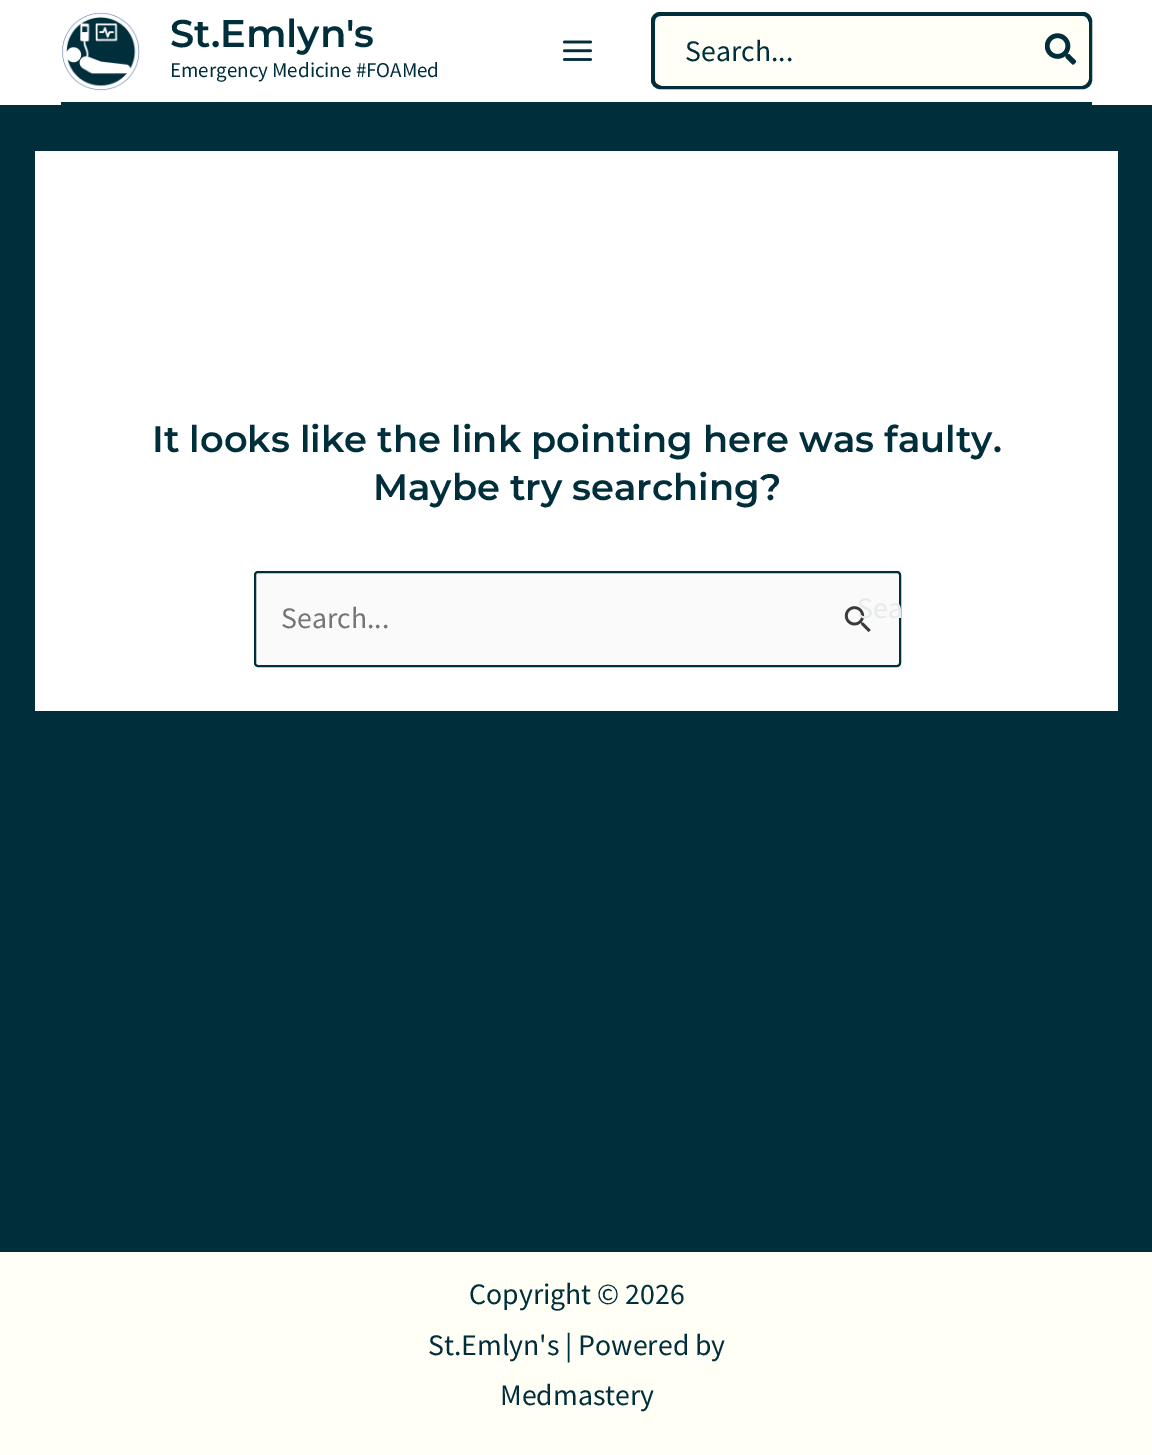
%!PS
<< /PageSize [1152 1455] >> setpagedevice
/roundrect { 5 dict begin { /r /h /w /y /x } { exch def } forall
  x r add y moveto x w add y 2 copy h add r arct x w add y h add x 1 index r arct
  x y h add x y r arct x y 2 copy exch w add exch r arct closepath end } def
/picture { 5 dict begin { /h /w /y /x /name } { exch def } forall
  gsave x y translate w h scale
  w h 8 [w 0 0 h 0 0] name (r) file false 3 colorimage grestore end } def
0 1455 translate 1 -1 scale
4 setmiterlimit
0 0.18 0.231 setrgbcolor
0 0 1152 1455 rectfill
1 setgray
0 0 1152 105 rectfill
0 0.18 0.231 setrgbcolor
61 102 1031 3 rectfill
(img1.rgb) 62 12 78 79 picture
/Montserrat-SemiBold [38.5 0 0 -38.5 0 0] selectfont
170 47 moveto (St.Emlyn's) show
/SourceSansPro-Regular [21 0 0 -21 0 0] selectfont
170 77 moveto (Emergency Medicine #FOAMed) show
(img2.rgb) 562 40 31 21 picture
1 1 0.961 setrgbcolor
653 14 437 73 7 roundrect gsave fill grestore
0 0.18 0.231 setrgbcolor
4 setlinewidth
stroke
1 1 0.961 setrgbcolor
655 16 434 70 9 roundrect fill
/SourceSansPro-Regular [29.75 0 0 -29.75 0 0] selectfont
0 0.18 0.231 setrgbcolor
685 61 moveto (Search...) show
1 1 0.961 setrgbcolor
1038 16 49 70 9 roundrect fill
(img3.rgb) 1045 33 31 32 picture
1 setgray
35 151 1083 560 rectfill
/Montserrat-SemiBold [36.75 0 0 -36.75 0 0] selectfont
0 0.18 0.231 setrgbcolor
152 452 moveto (It looks like the link pointing here was faulty.) show
373 500 moveto (Maybe try searching?) show
0.98 setgray
255 572 645 94 3 roundrect gsave fill grestore
0 0.18 0.231 setrgbcolor
2 setlinewidth
stroke
/SourceSansPro-Regular [29.75 0 0 -29.75 0 0] selectfont
0.459 setgray
281 628 moveto (Search...) show
(img4.rgb) 844 606 27 27 picture
0.906 0.918 0.918 setrgbcolor
857 618 moveto (Sea) show
1 1 0.961 setrgbcolor
0 1252 1152 203 rectfill
0 0.18 0.231 setrgbcolor
469 1304 moveto (Copyright © 2026) show
428 1355 moveto (St.Emlyn's | Powered by) show
500 1405 moveto (Medmastery) show
showpage
